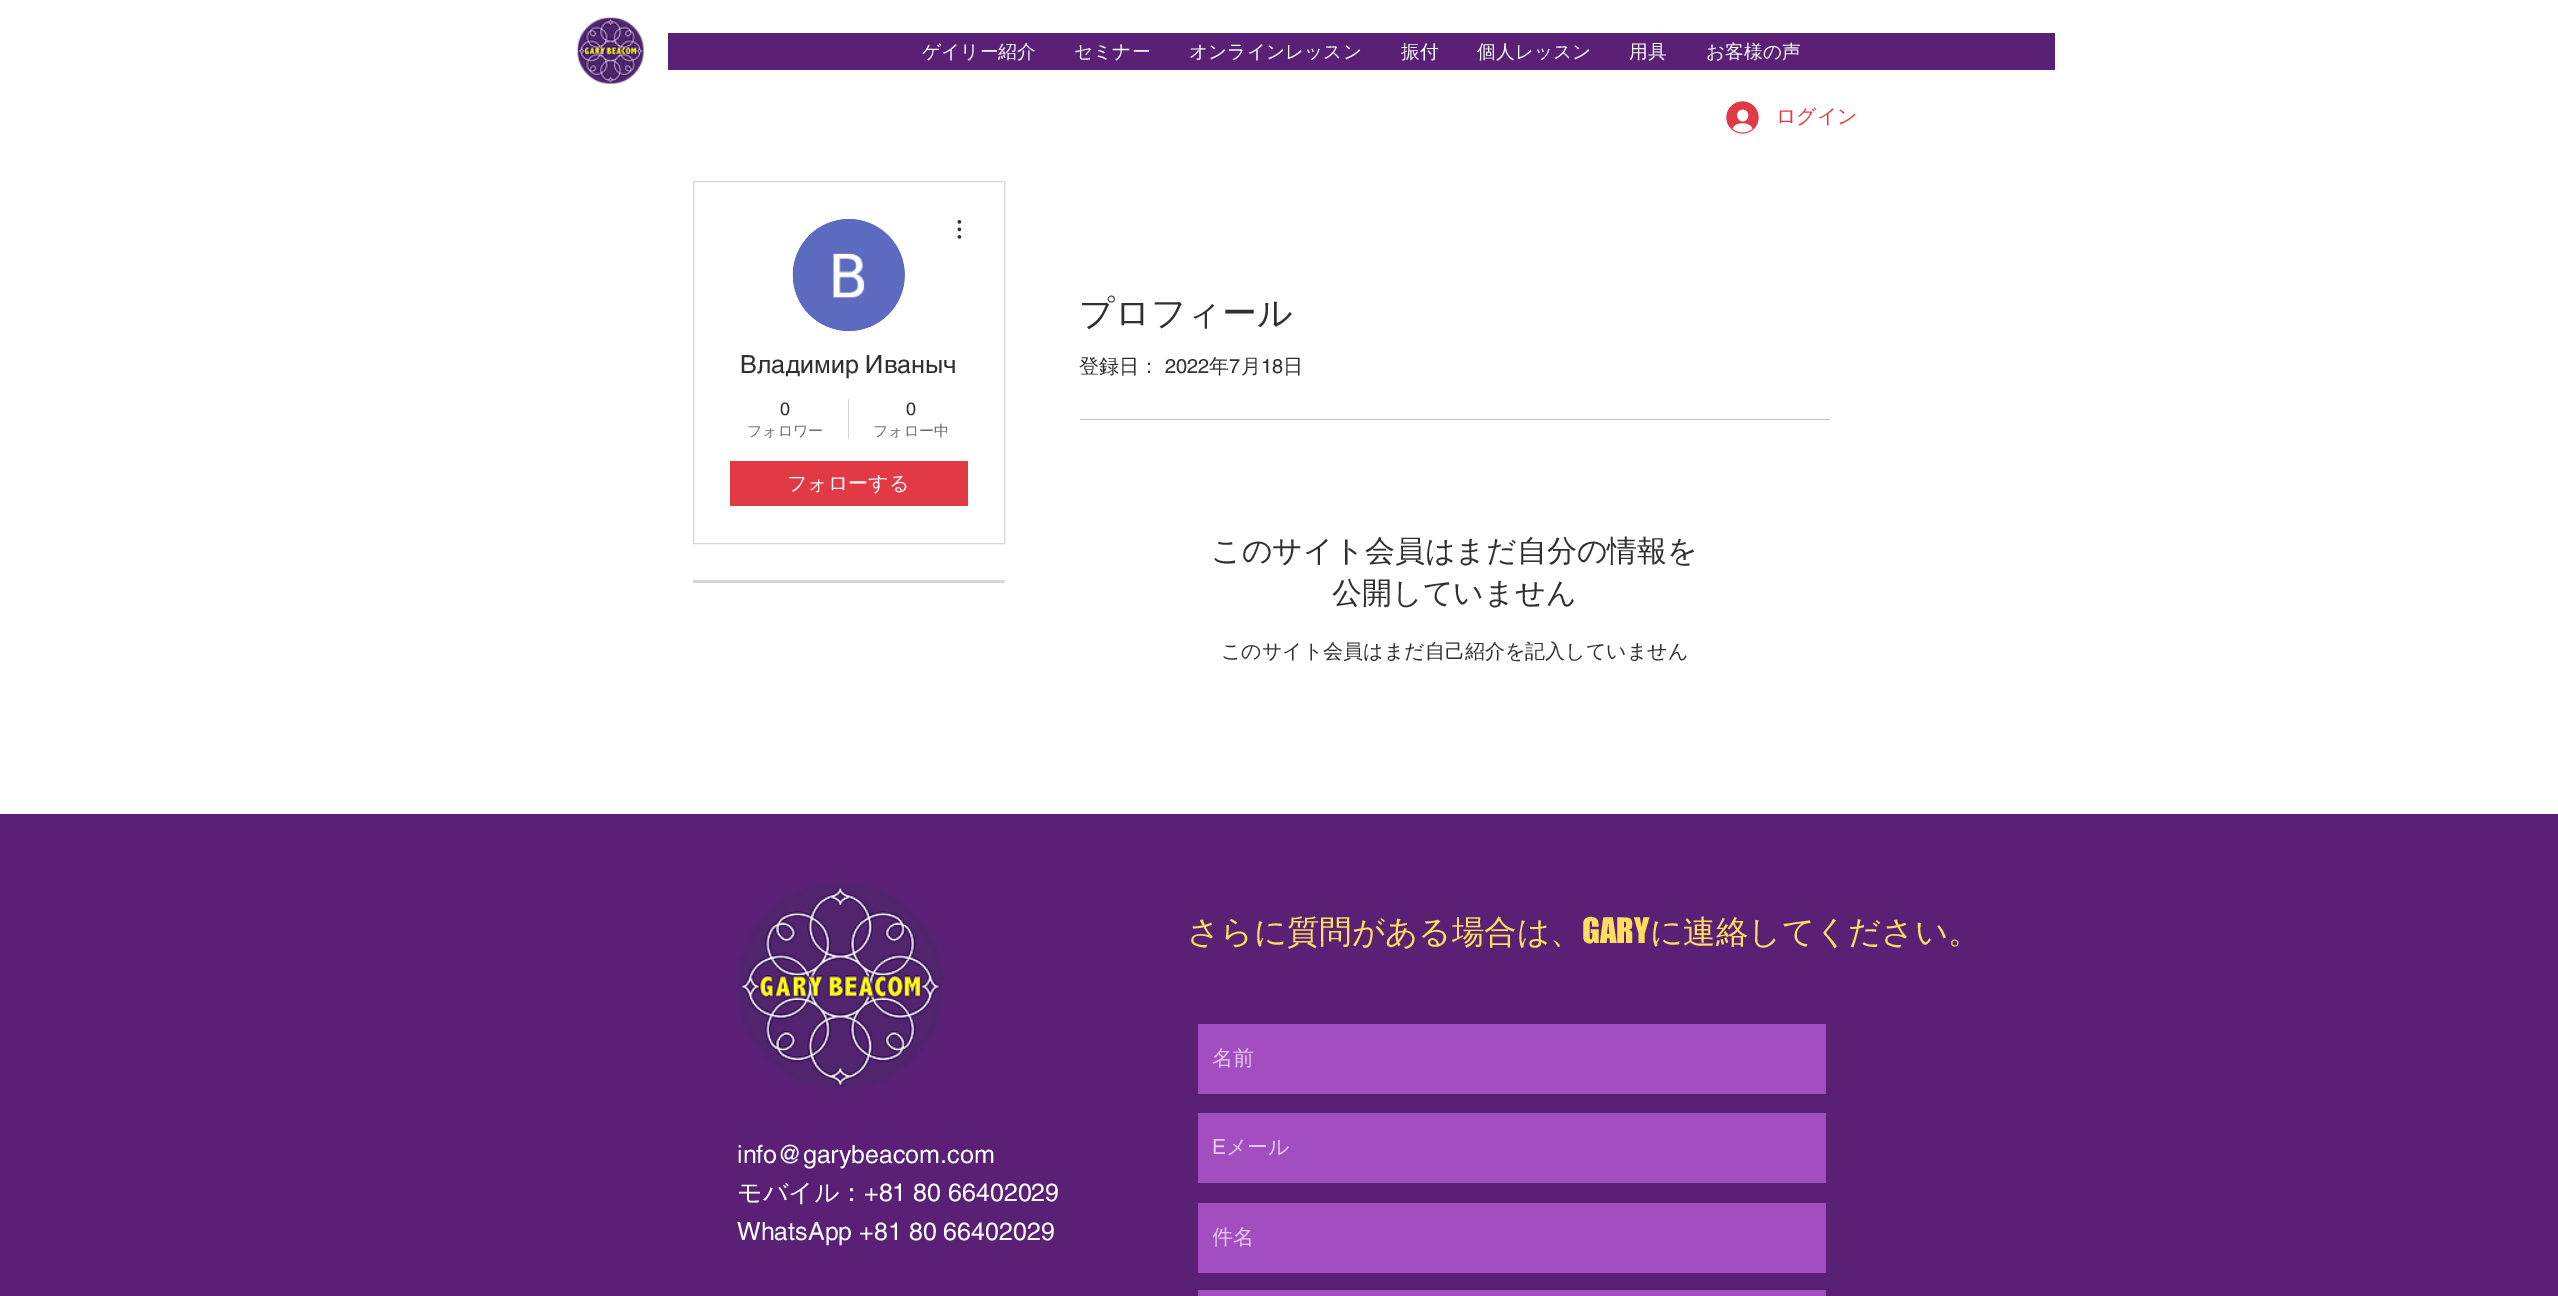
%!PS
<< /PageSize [2558 1296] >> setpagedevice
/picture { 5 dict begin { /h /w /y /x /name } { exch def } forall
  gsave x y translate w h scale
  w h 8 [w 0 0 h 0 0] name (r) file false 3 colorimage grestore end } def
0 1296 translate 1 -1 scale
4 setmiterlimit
1 setgray
0 0 2558 1296 rectfill
(img1.rgb) 577 17 67 67 picture
0.349 0.125 0.459 setrgbcolor
668 33 1387 37 rectfill
/WenQuanYiZenHei-Medium [18.75 0 0 -18.75 0 0] selectfont
1 setgray
922 58 moveto (ゲイリー紹介) show
1074 58 moveto (セミナー) show
1189 58 moveto (オンラインレッスン) show
1401 58 moveto (振付) show
1477 58 moveto (個人レッスン) show
1629 58 moveto (用具) show
1706 58 moveto (お客様の声) show
(img2.rgb) 1726 101 33 33 picture
/WenQuanYiZenHei-Medium [20 0 0 -20 0 0] selectfont
0.882 0.227 0.267 setrgbcolor
1776 123 moveto (ログイン) show
0.839 setgray
693.5 181.5 311 362 rectstroke
0.847 setgray
newpath 849 275 56 0 360 arc closepath fill
(img3.rgb) 792 219 113 112 picture
(img4.rgb) 957 220 5 19 picture
/helvetica-Regular [25 0 0 -25 0 0] selectfont
0.188 setgray
740 373 moveto (Владимир Иваныч) show
/helvetica-Regular [18 0 0 -18 0 0] selectfont
780 415 moveto (0) show
/WenQuanYiZenHei-Medium [15 0 0 -15 0 0] selectfont
0.431 setgray
747 436 moveto (フォロワー) show
0.839 setgray
848 399 1 40 rectfill
/helvetica-Regular [18 0 0 -18 0 0] selectfont
0.188 setgray
906 415 moveto (0) show
/WenQuanYiZenHei-Medium [15 0 0 -15 0 0] selectfont
0.431 setgray
873 436 moveto (フォロー中) show
0.882 0.227 0.267 setrgbcolor
730 461 238 45 rectfill
/WenQuanYiZenHei-Medium [20 0 0 -20 0 0] selectfont
1 setgray
787 490 moveto (フォローする) show
0.839 setgray
693 580 312 3 rectfill
/WenQuanYiZenHei-Medium [35 0 0 -35 0 0] selectfont
0.188 setgray
1079 325 moveto (プロフィール) show
/WenQuanYiZenHei-Medium [20 0 0 -20 0 0] selectfont
1079 373 moveto (登録日：) show
/helvetica-Regular [20 0 0 -20 0 0] selectfont
1165 373 moveto (2022) show
/WenQuanYiZenHei-Medium [20 0 0 -20 0 0] selectfont
1209 373 moveto (年) show
/helvetica-Regular [20 0 0 -20 0 0] selectfont
1229 373 moveto (7) show
/WenQuanYiZenHei-Medium [20 0 0 -20 0 0] selectfont
1241 373 moveto (月) show
/helvetica-Regular [20 0 0 -20 0 0] selectfont
1261 373 moveto (18) show
/WenQuanYiZenHei-Medium [20 0 0 -20 0 0] selectfont
1283 373 moveto (日) show
0.757 setgray
1080 419 750 1 rectfill
/WenQuanYiZenHei-Medium [30 0 0 -30 0 0] selectfont
0.188 setgray
1211 561 moveto (このサイト会員はまだ自分の情報を) show
1332 603 moveto (公開していません) show
/WenQuanYiZenHei-Medium [20 0 0 -20 0 0] selectfont
1221 658 moveto (このサイト会員はまだ自己紹介を記入していません) show
0.349 0.125 0.459 setrgbcolor
0 814 2558 482 rectfill
(img5.rgb) 738 883 206 206 picture
/WenQuanYiZenHei-Medium [32.5 0 0 -32.5 0 0] selectfont
1 0.871 0.373 setrgbcolor
1187 943 moveto (さらに質問がある場合は、) show
/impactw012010-Regular [32.5 0 0 -32.5 0 0] selectfont
1582 943 moveto (GARY) show
/WenQuanYiZenHei-Medium [32.5 0 0 -32.5 0 0] selectfont
1650 943 moveto (に連絡してください。) show
/helvetica-Regular [25 0 0 -25 0 0] selectfont
1 setgray
737 1163 moveto (info@garybeacom.com) show
/WenQuanYiZenHei-Medium [25 0 0 -25 0 0] selectfont
737 1201 moveto (モバイル：) show
/helvetica-Regular [25 0 0 -25 0 0] selectfont
864 1201 moveto (+81 80 66402029) show
737 1240 moveto (WhatsApp +81 80 66402029) show
0.635 0.306 0.757 setrgbcolor
1198 1024 628 70 rectfill
/WenQuanYiZenHei-Medium [21 0 0 -21 0 0] selectfont
0.906 0.792 0.949 setrgbcolor
1212 1065 moveto (名前) show
0.635 0.306 0.757 setrgbcolor
1198 1113 628 70 rectfill
/helvetica-Regular [21 0 0 -21 0 0] selectfont
0.906 0.792 0.949 setrgbcolor
1212 1154 moveto (E) show
/WenQuanYiZenHei-Medium [21 0 0 -21 0 0] selectfont
1226 1154 moveto (メール) show
0.635 0.306 0.757 setrgbcolor
1198 1203 628 70 rectfill
gsave
1213 1223 610 28 rectclip
0.906 0.792 0.949 setrgbcolor
1212 1244 moveto (件名) show
grestore
1198 1290 628 6 rectfill
showpage
